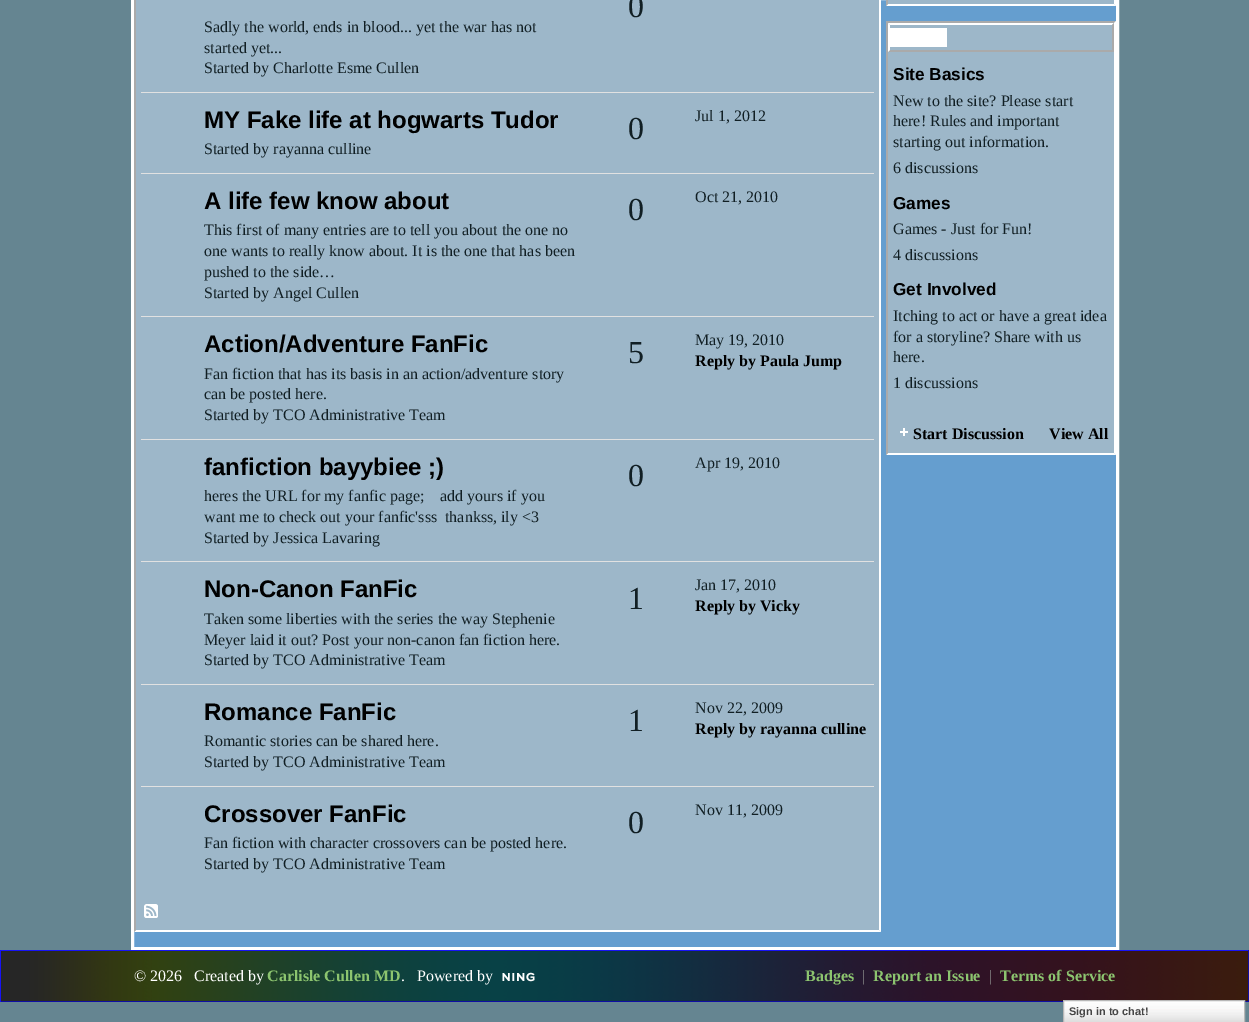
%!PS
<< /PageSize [1249 1022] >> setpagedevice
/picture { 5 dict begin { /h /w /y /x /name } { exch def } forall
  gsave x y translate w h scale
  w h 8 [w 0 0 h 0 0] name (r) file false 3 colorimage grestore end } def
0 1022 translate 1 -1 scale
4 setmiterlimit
0.396 0.522 0.569 setrgbcolor
0 0 1249 1022 rectfill
0.396 0.62 0.812 setrgbcolor
newpath 132.5 -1.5 moveto 1117.5 -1.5 lineto 1117.5 948.5 lineto 132.5 948.5 lineto closepath gsave fill grestore
1 setgray
3 setlinewidth
stroke
0.616 0.718 0.788 setrgbcolor
134 0 747 932 rectfill
1 setgray
newpath 881 -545 moveto 881 932 lineto 879 930 lineto 879 -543 lineto closepath fill
newpath 881 932 moveto 134 932 lineto 136 930 lineto 879 930 lineto closepath fill
0.667 setgray
newpath 134 932 moveto 134 -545 lineto 136 -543 lineto 136 930 lineto closepath fill
/LiberationSerif-Regular [32 0 0 -32 0 0] selectfont
0.067 0.122 0.141 setrgbcolor
628 17 moveto -1 0 (0) ashow
/LiberationSerif-Regular [16 0 0 -16 0 0] selectfont
204 32 moveto (Sadly the world, ends in blood... yet the war has not) show
204 53 moveto (started yet...) show
204 73 moveto (Started by Charlotte Esme Cullen) show
0.882 setgray
141 92 733 1 rectfill
/LiberationSans-Bold [24 0 0 -24 0 0] selectfont
0 setgray
204 128 moveto (MY Fake life at hogwarts Tudor) show
/LiberationSerif-Regular [16 0 0 -16 0 0] selectfont
0.067 0.122 0.141 setrgbcolor
204 154 moveto (Started by rayanna culline) show
/LiberationSerif-Regular [32 0 0 -32 0 0] selectfont
628 139 moveto -1 0 (0) ashow
0.882 setgray
141 173 733 1 rectfill
/LiberationSerif-Regular [16 0 0 -16 0 0] selectfont
0.067 0.122 0.141 setrgbcolor
695 121 moveto (Jul 1, 2012) show
/LiberationSans-Bold [24 0 0 -24 0 0] selectfont
0 setgray
204 209 moveto (A life few know about) show
/LiberationSerif-Regular [16 0 0 -16 0 0] selectfont
0.067 0.122 0.141 setrgbcolor
204 235 moveto (This first of many entries are to tell you about the one no) show
204 256 moveto (one wants to really know about. It is the one that has been) show
204 277 moveto (pushed to the side…) show
204 298 moveto (Started by Angel Cullen) show
/LiberationSerif-Regular [32 0 0 -32 0 0] selectfont
628 220 moveto -1 0 (0) ashow
0.882 setgray
141 316 733 1 rectfill
/LiberationSerif-Regular [16 0 0 -16 0 0] selectfont
0.067 0.122 0.141 setrgbcolor
695 202 moveto (Oct 21, 2010) show
/LiberationSans-Bold [24 0 0 -24 0 0] selectfont
0 setgray
204 352 moveto (Action/Adventure FanFic) show
/LiberationSerif-Regular [16 0 0 -16 0 0] selectfont
0.067 0.122 0.141 setrgbcolor
204 379 moveto (Fan fiction that has its basis in an action/adventure story) show
204 399 moveto (can be posted here.) show
204 420 moveto (Started by TCO Administrative Team) show
/LiberationSerif-Regular [32 0 0 -32 0 0] selectfont
628 363 moveto -1 0 (5) ashow
0.882 setgray
141 439 733 1 rectfill
/LiberationSerif-Regular [16 0 0 -16 0 0] selectfont
0.067 0.122 0.141 setrgbcolor
695 345 moveto (May 19, 2010) show
/LiberationSerif-Bold [16 0 0 -16 0 0] selectfont
0 setgray
695 366 moveto (Reply by Paula Jump) show
/LiberationSans-Bold [24 0 0 -24 0 0] selectfont
204 475 moveto (fanfiction bayybiee ;\)) show
/LiberationSerif-Regular [16 0 0 -16 0 0] selectfont
0.067 0.122 0.141 setrgbcolor
204 501 moveto (heres the URL for my fanfic page;    add yours if you) show
204 522 moveto (want me to check out your fanfic'sss  thankss, ily <3) show
204 543 moveto (Started by Jessica Lavaring) show
/LiberationSerif-Regular [32 0 0 -32 0 0] selectfont
628 486 moveto -1 0 (0) ashow
0.882 setgray
141 561 733 1 rectfill
/LiberationSerif-Regular [16 0 0 -16 0 0] selectfont
0.067 0.122 0.141 setrgbcolor
695 468 moveto (Apr 19, 2010) show
/LiberationSans-Bold [24 0 0 -24 0 0] selectfont
0 setgray
204 597 moveto (Non-Canon FanFic) show
/LiberationSerif-Regular [16 0 0 -16 0 0] selectfont
0.067 0.122 0.141 setrgbcolor
204 624 moveto (Taken some liberties with the series the way Stephenie) show
204 645 moveto (Meyer laid it out? Post your non-canon fan fiction here.) show
204 665 moveto (Started by TCO Administrative Team) show
/LiberationSerif-Regular [32 0 0 -32 0 0] selectfont
628 609 moveto -1 0 (1) ashow
0.882 setgray
141 684 733 1 rectfill
/LiberationSerif-Regular [16 0 0 -16 0 0] selectfont
0.067 0.122 0.141 setrgbcolor
695 590 moveto (Jan 17, 2010) show
/LiberationSerif-Bold [16 0 0 -16 0 0] selectfont
0 setgray
695 611 moveto (Reply by Vicky) show
/LiberationSans-Bold [24 0 0 -24 0 0] selectfont
204 720 moveto (Romance FanFic) show
/LiberationSerif-Regular [16 0 0 -16 0 0] selectfont
0.067 0.122 0.141 setrgbcolor
204 746 moveto (Romantic stories can be shared here.) show
204 767 moveto (Started by TCO Administrative Team) show
/LiberationSerif-Regular [32 0 0 -32 0 0] selectfont
628 731 moveto -1 0 (1) ashow
0.882 setgray
141 786 733 1 rectfill
/LiberationSerif-Regular [16 0 0 -16 0 0] selectfont
0.067 0.122 0.141 setrgbcolor
695 713 moveto (Nov 22, 2009) show
/LiberationSerif-Bold [16 0 0 -16 0 0] selectfont
0 setgray
695 734 moveto (Reply by rayanna culline) show
/LiberationSans-Bold [24 0 0 -24 0 0] selectfont
204 822 moveto (Crossover FanFic) show
/LiberationSerif-Regular [16 0 0 -16 0 0] selectfont
0.067 0.122 0.141 setrgbcolor
204 848 moveto (Fan fiction with character crossovers can be posted here.) show
204 869 moveto (Started by TCO Administrative Team) show
/LiberationSerif-Regular [32 0 0 -32 0 0] selectfont
628 833 moveto -1 0 (0) ashow
/LiberationSerif-Regular [16 0 0 -16 0 0] selectfont
695 815 moveto (Nov 11, 2009) show
(img1.rgb) 144 904 14 14 picture
0.616 0.718 0.788 setrgbcolor
886 0 230 6 rectfill
1 setgray
newpath 1116 -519 moveto 1116 6 lineto 1114 4 lineto 1114 -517 lineto closepath fill
newpath 1116 6 moveto 886 6 lineto 888 4 lineto 1114 4 lineto closepath fill
0.667 setgray
newpath 886 6 moveto 886 -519 lineto 888 -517 lineto 888 4 lineto closepath fill
0.616 0.718 0.788 setrgbcolor
886 21 230 434 rectfill
0.667 setgray
newpath 886 21 moveto 1116 21 lineto 1114 23 lineto 888 23 lineto closepath fill
1 setgray
newpath 1116 21 moveto 1116 455 lineto 1114 453 lineto 1114 23 lineto closepath fill
newpath 1116 455 moveto 886 455 lineto 888 453 lineto 1114 453 lineto closepath fill
0.667 setgray
newpath 886 455 moveto 886 21 lineto 888 23 lineto 888 453 lineto closepath fill
1 setgray
newpath 888 23 moveto 1114 23 lineto 1112 25 lineto 890 25 lineto closepath fill
0.667 setgray
newpath 1114 23 moveto 1114 52 lineto 1112 50 lineto 1112 25 lineto closepath fill
newpath 1114 52 moveto 888 52 lineto 890 50 lineto 1112 50 lineto closepath fill
1 setgray
newpath 888 52 moveto 888 23 lineto 890 25 lineto 890 50 lineto closepath fill
890 28 57 19 rectfill
/LiberationSans-Bold [17.25 0 0 -17.25 0 0] selectfont
0 setgray
893 80 moveto (Site Basics) show
/LiberationSerif-Regular [16 0 0 -16 0 0] selectfont
0.067 0.122 0.141 setrgbcolor
893 106 moveto (New to the site? Please start) show
893 126 moveto (here! Rules and important) show
893 147 moveto (starting out information.) show
893 173 moveto (6 discussions) show
/LiberationSans-Bold [17.25 0 0 -17.25 0 0] selectfont
0 setgray
893 209 moveto (Games) show
/LiberationSerif-Regular [16 0 0 -16 0 0] selectfont
0.067 0.122 0.141 setrgbcolor
893 234 moveto (Games - Just for Fun!) show
893 260 moveto (4 discussions) show
/LiberationSans-Bold [17.25 0 0 -17.25 0 0] selectfont
0 setgray
893 295 moveto (Get Involved) show
/LiberationSerif-Regular [16 0 0 -16 0 0] selectfont
0.067 0.122 0.141 setrgbcolor
893 321 moveto (Itching to act or have a great idea) show
893 342 moveto (for a storyline? Share with us) show
893 362 moveto (here.) show
893 388 moveto (1 discussions) show
(img2.rgb) 900 428 8 8 picture
/LiberationSerif-Bold [16 0 0 -16 0 0] selectfont
0 setgray
913 439 moveto (Start Discussion) show
1049 439 moveto (View All) show
(img3.rgb) 1 951 1247 50 picture
0.09 0.075 0.961 setrgbcolor
0 950 1249 1 rectfill
0.059 0.051 0.639 setrgbcolor
1248 950 1 52 rectfill
0 1001 1249 1 rectfill
0.09 0.075 0.961 setrgbcolor
0 950 1 52 rectfill
/LiberationSerif-Regular [16 0 0 -16 0 0] selectfont
1 setgray
134 981 moveto (© 2026) show
194 981 moveto (Created by) show
/LiberationSerif-Bold [16 0 0 -16 0 0] selectfont
0.549 0.769 0.435 setrgbcolor
267 981 moveto (Carlisle Cullen MD) show
/LiberationSerif-Regular [16 0 0 -16 0 0] selectfont
1 setgray
401 981 moveto (.) show
417 981 moveto (Powered by) show
(img4.rgb) 502 972 33 10 picture
/LiberationSerif-Bold [16 0 0 -16 0 0] selectfont
0.549 0.769 0.435 setrgbcolor
805 981 moveto (Badges) show
/LiberationSerif-Regular [16 0 0 -16 0 0] selectfont
0.533 setgray
862 981 moveto (|) show
/LiberationSerif-Bold [16 0 0 -16 0 0] selectfont
0.549 0.769 0.435 setrgbcolor
873 981 moveto (Report an Issue) show
/LiberationSerif-Regular [16 0 0 -16 0 0] selectfont
0.533 setgray
989 981 moveto (|) show
/LiberationSerif-Bold [16 0 0 -16 0 0] selectfont
0.549 0.769 0.435 setrgbcolor
1000 981 moveto (Terms of Service) show
(img5.rgb) 1064 1001 180 21 picture
0.718 setgray
1 setlinewidth
1063.5 1000.5 181 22 rectstroke
/LiberationSans-Bold [11 0 0 -11 0 0] selectfont
0.271 setgray
1069 1015 moveto (Sign in to chat!) show
showpage
